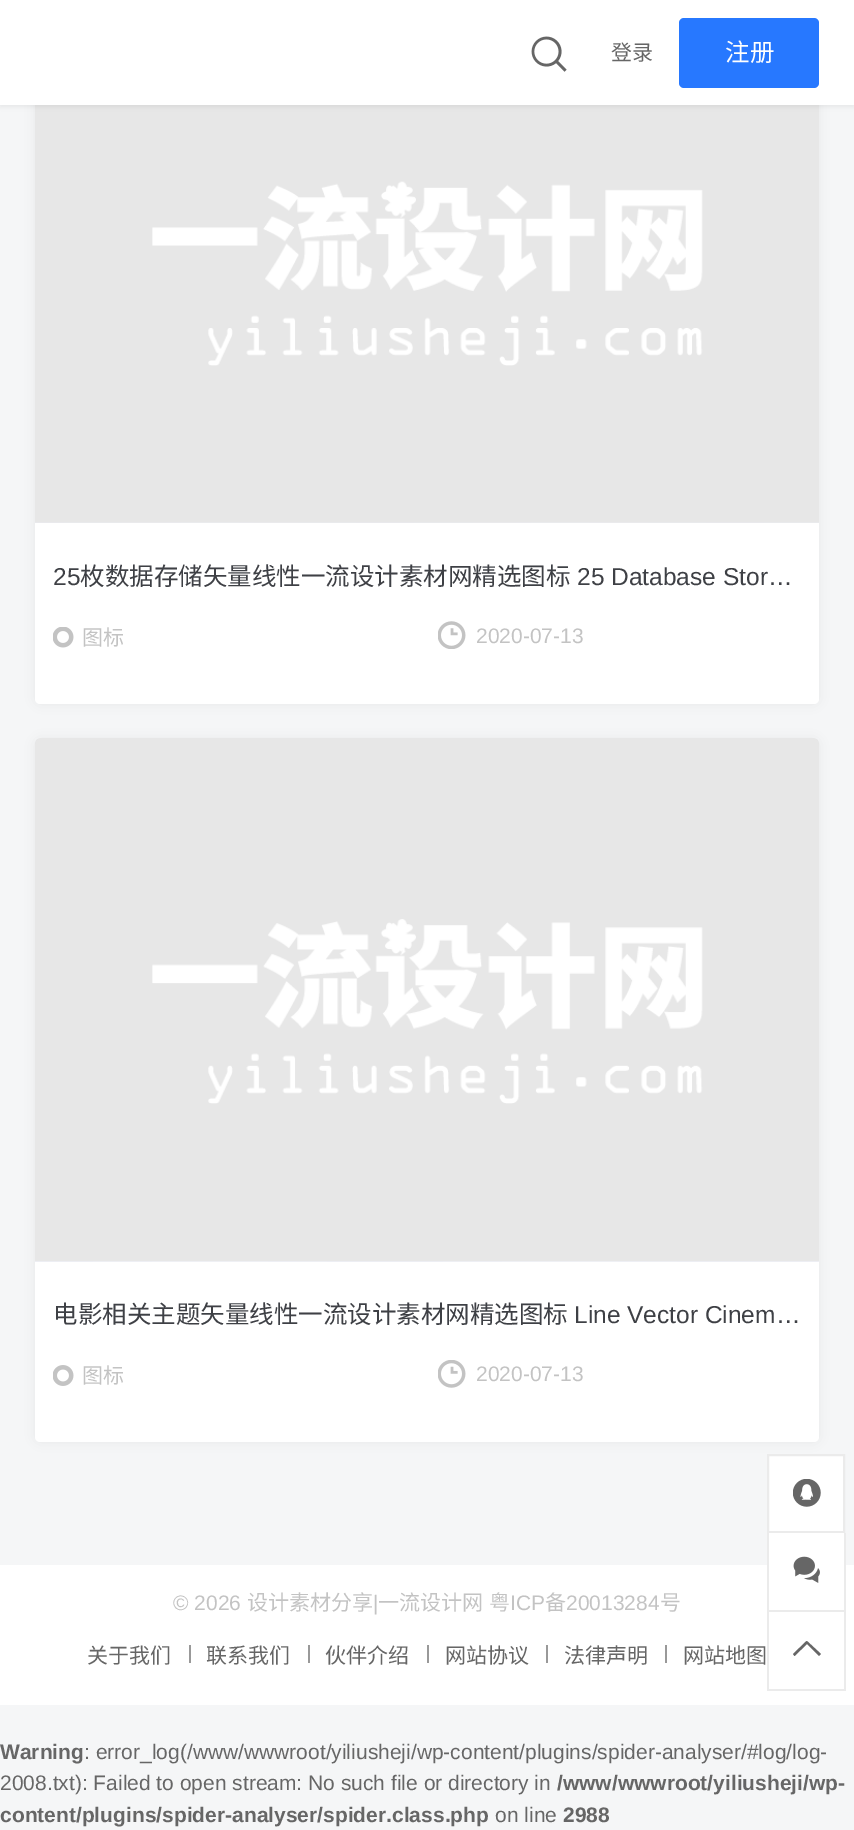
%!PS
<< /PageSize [854 1830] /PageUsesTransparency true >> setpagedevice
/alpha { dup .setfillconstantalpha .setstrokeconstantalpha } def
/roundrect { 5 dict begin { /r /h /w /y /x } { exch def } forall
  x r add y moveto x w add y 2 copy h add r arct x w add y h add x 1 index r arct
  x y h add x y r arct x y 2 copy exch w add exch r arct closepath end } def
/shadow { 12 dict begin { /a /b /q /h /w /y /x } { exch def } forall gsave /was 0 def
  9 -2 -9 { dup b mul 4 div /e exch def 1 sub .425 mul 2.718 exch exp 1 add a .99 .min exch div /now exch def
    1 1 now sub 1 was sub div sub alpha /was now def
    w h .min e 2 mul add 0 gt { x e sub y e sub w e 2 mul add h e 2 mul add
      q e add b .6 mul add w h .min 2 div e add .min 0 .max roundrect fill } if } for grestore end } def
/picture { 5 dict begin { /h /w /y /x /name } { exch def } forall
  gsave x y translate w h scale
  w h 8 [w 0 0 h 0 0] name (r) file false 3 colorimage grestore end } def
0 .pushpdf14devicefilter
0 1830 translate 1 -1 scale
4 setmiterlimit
0.961 0.965 0.969 setrgbcolor
0 0 854 1830 rectfill
0 setgray
35 2 784 702 5 6 0.05 shadow
1 setgray
35 2 784 702 5 roundrect fill
gsave newpath 35 522 moveto 385 522 lineto 385 523 lineto 35 523 lineto closepath clip newpath
<< /ShadingType 2 /ColorSpace /DeviceRGB /Coords [35 263 385 263] /Extend [true true] /Function << /FunctionType 3 /Domain [0 1] /Functions [<< /FunctionType 2 /Domain [0 1] /C0 [0.929 0.933 0.953] /C1 [0.941 0.945 0.961] /N 1 >> << /FunctionType 2 /Domain [0 1] /C0 [0.941 0.945 0.961] /C1 [0.929 0.933 0.953] /N 1 >>] /Bounds [0.5] /Encode [0 1 0 1] >> >> shfill grestore
gsave newpath 385 522 moveto 735 522 lineto 735 523 lineto 385 523 lineto closepath clip newpath
<< /ShadingType 2 /ColorSpace /DeviceRGB /Coords [385 263 735 263] /Extend [true true] /Function << /FunctionType 3 /Domain [0 1] /Functions [<< /FunctionType 2 /Domain [0 1] /C0 [0.929 0.933 0.953] /C1 [0.941 0.945 0.961] /N 1 >> << /FunctionType 2 /Domain [0 1] /C0 [0.941 0.945 0.961] /C1 [0.929 0.933 0.953] /N 1 >>] /Bounds [0.5] /Encode [0 1 0 1] >> >> shfill grestore
gsave newpath 735 522 moveto 819 522 lineto 819 523 lineto 735 523 lineto closepath clip newpath
<< /ShadingType 2 /ColorSpace /DeviceRGB /Coords [735 263 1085 263] /Extend [true true] /Function << /FunctionType 3 /Domain [0 1] /Functions [<< /FunctionType 2 /Domain [0 1] /C0 [0.929 0.933 0.953] /C1 [0.941 0.945 0.961] /N 1 >> << /FunctionType 2 /Domain [0 1] /C0 [0.941 0.945 0.961] /C1 [0.929 0.933 0.953] /N 1 >>] /Bounds [0.5] /Encode [0 1 0 1] >> >> shfill grestore
(img2.rgb) 35 105 784 418 picture
0 setgray
0 2 854 105 0 2.5 0.05 shadow
1 setgray
0 0 854 105 rectfill
(img1.rgb) 531 36 36 36 picture
/NotoSansCJKSC-Regular [21 0 0 -21 0 0] selectfont
0.4 setgray
611 60 moveto (登录) show
0.153 0.471 1 setrgbcolor
679 18 140 70 5 roundrect fill
/NotoSansCJKSC-Regular [24.5 0 0 -24.5 0 0] selectfont
1 setgray
725 61 moveto (注册) show
/LiberationSans-Regular [24.5 0 0 -24.5 0 0] selectfont
0.243 0.251 0.271 setrgbcolor
53 585 moveto (25) show
/NotoSansCJKSC-Regular [24.5 0 0 -24.5 0 0] selectfont
80 585 moveto (枚数据存储矢量线性一流设计素材网精选图标) show
/LiberationSans-Regular [24.5 0 0 -24.5 0 0] selectfont
577 585 moveto (25 Database Stor…) show
(img3.rgb) 53 627 21 21 picture
/NotoSansCJKSC-Regular [21 0 0 -21 0 0] selectfont
0.765 setgray
82 645 moveto (图标) show
(img4.rgb) 438 621 28 28 picture
/LiberationSans-Regular [21 0 0 -21 0 0] selectfont
476 643 moveto (2020-07-13) show
0 setgray
35 739 784 703 5 6 0.05 shadow
1 setgray
35 739 784 703 5 roundrect fill
gsave newpath 40 739 moveto 385 739 lineto 385 1262 lineto 35 1262 lineto 35 744 lineto 35 741 37 739 40 739 curveto closepath clip newpath
<< /ShadingType 2 /ColorSpace /DeviceRGB /Coords [35 1000 385 1000] /Extend [true true] /Function << /FunctionType 3 /Domain [0 1] /Functions [<< /FunctionType 2 /Domain [0 1] /C0 [0.929 0.933 0.953] /C1 [0.941 0.945 0.961] /N 1 >> << /FunctionType 2 /Domain [0 1] /C0 [0.941 0.945 0.961] /C1 [0.929 0.933 0.953] /N 1 >>] /Bounds [0.5] /Encode [0 1 0 1] >> >> shfill grestore
gsave newpath 385 1261 moveto 735 1261 lineto 735 1262 lineto 385 1262 lineto closepath clip newpath
<< /ShadingType 2 /ColorSpace /DeviceRGB /Coords [385 1000 735 1000] /Extend [true true] /Function << /FunctionType 3 /Domain [0 1] /Functions [<< /FunctionType 2 /Domain [0 1] /C0 [0.929 0.933 0.953] /C1 [0.941 0.945 0.961] /N 1 >> << /FunctionType 2 /Domain [0 1] /C0 [0.941 0.945 0.961] /C1 [0.929 0.933 0.953] /N 1 >>] /Bounds [0.5] /Encode [0 1 0 1] >> >> shfill grestore
gsave newpath 735 739 moveto 814 739 lineto 817 739 819 741 819 744 curveto 819 1262 lineto 735 1262 lineto closepath clip newpath
<< /ShadingType 2 /ColorSpace /DeviceRGB /Coords [735 1000 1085 1000] /Extend [true true] /Function << /FunctionType 3 /Domain [0 1] /Functions [<< /FunctionType 2 /Domain [0 1] /C0 [0.929 0.933 0.953] /C1 [0.941 0.945 0.961] /N 1 >> << /FunctionType 2 /Domain [0 1] /C0 [0.941 0.945 0.961] /C1 [0.929 0.933 0.953] /N 1 >>] /Bounds [0.5] /Encode [0 1 0 1] >> >> shfill grestore
(img5.rgb) 35 738 784 523 picture
/NotoSansCJKSC-Regular [24.5 0 0 -24.5 0 0] selectfont
0.243 0.251 0.271 setrgbcolor
53 1323 moveto (电影相关主题矢量线性一流设计素材网精选图标) show
/LiberationSans-Regular [24.5 0 0 -24.5 0 0] selectfont
574 1323 moveto (Line Vector Cinem…) show
(img6.rgb) 53 1365 21 21 picture
/NotoSansCJKSC-Regular [21 0 0 -21 0 0] selectfont
0.765 setgray
82 1383 moveto (图标) show
(img7.rgb) 438 1360 28 28 picture
/LiberationSans-Regular [21 0 0 -21 0 0] selectfont
476 1381 moveto (2020-07-13) show
1 setgray
0 1565 854 140 rectfill
0.765 setgray
173 1610 moveto (© 2026) show
/NotoSansCJKSC-Regular [21 0 0 -21 0 0] selectfont
247 1610 moveto (设计素材分享) show
/LiberationSans-Regular [21 0 0 -21 0 0] selectfont
373 1610 moveto (|) show
/NotoSansCJKSC-Regular [21 0 0 -21 0 0] selectfont
378 1610 moveto (一流设计网) show
489 1610 moveto (粤) show
/LiberationSans-Regular [21 0 0 -21 0 0] selectfont
510 1610 moveto (ICP) show
/NotoSansCJKSC-Regular [21 0 0 -21 0 0] selectfont
545 1610 moveto (备) show
/LiberationSans-Regular [21 0 0 -21 0 0] selectfont
566 1610 moveto (20013284) show
/NotoSansCJKSC-Regular [21 0 0 -21 0 0] selectfont
660 1610 moveto (号) show
0.4 setgray
87 1663 moveto (关于我们) show
0.6 setgray
189 1645 2 18 rectfill
0.4 setgray
206 1663 moveto (联系我们) show
0.6 setgray
308 1645 2 18 rectfill
0.4 setgray
325 1663 moveto (伙伴介绍) show
0.6 setgray
427 1645 2 18 rectfill
0.4 setgray
445 1663 moveto (网站协议) show
0.6 setgray
546 1645 2 18 rectfill
0.4 setgray
564 1663 moveto (法律声明) show
0.6 setgray
665 1645 2 18 rectfill
0.4 setgray
683 1663 moveto (网站地图) show
1 setgray
newpath 768 1455 moveto 844 1455 lineto 844 1532 lineto 768 1532 lineto closepath gsave fill grestore
0.922 setgray
2 setlinewidth
stroke
(img8.rgb) 793 1479 28 28 picture
1 setgray
769 1533 75 32 rectfill
0.922 setgray
844 1533 2 158 rectfill
767 1610 78 2 rectfill
767 1533 2 79 rectfill
(img9.rgb) 793 1556 27 27 picture
767 1689 78 2 rectfill
767 1612 2 79 rectfill
0.4 setgray
newpath 819 1656 moveto 807 1644 lineto 794.5 1656 lineto 793 1654 lineto 806 1641.5 lineto 806.5 1641 807 1641 807.5 1641.5 curveto 821 1654 lineto closepath eofill
/LiberationSans-Bold [21 0 0 -21 0 0] selectfont
0 1759 moveto (Warning) show
/LiberationSans-Regular [21 0 0 -21 0 0] selectfont
84 1759 moveto (: error_log\(/www/wwwroot/yiliusheji/wp-content/plugins/spider-analyser/#log/log-) show
0 1790 moveto (2008.txt\): Failed to open stream: No such file or directory in) show
/LiberationSans-Bold [21 0 0 -21 0 0] selectfont
557 1790 moveto (/www/wwwroot/yiliusheji/wp-) show
0 1822 moveto (content/plugins/spider-analyser/spider.class.php) show
/LiberationSans-Regular [21 0 0 -21 0 0] selectfont
495 1822 moveto (on line) show
/LiberationSans-Bold [21 0 0 -21 0 0] selectfont
563 1822 moveto (2988) show
.poppdf14devicefilter showpage
